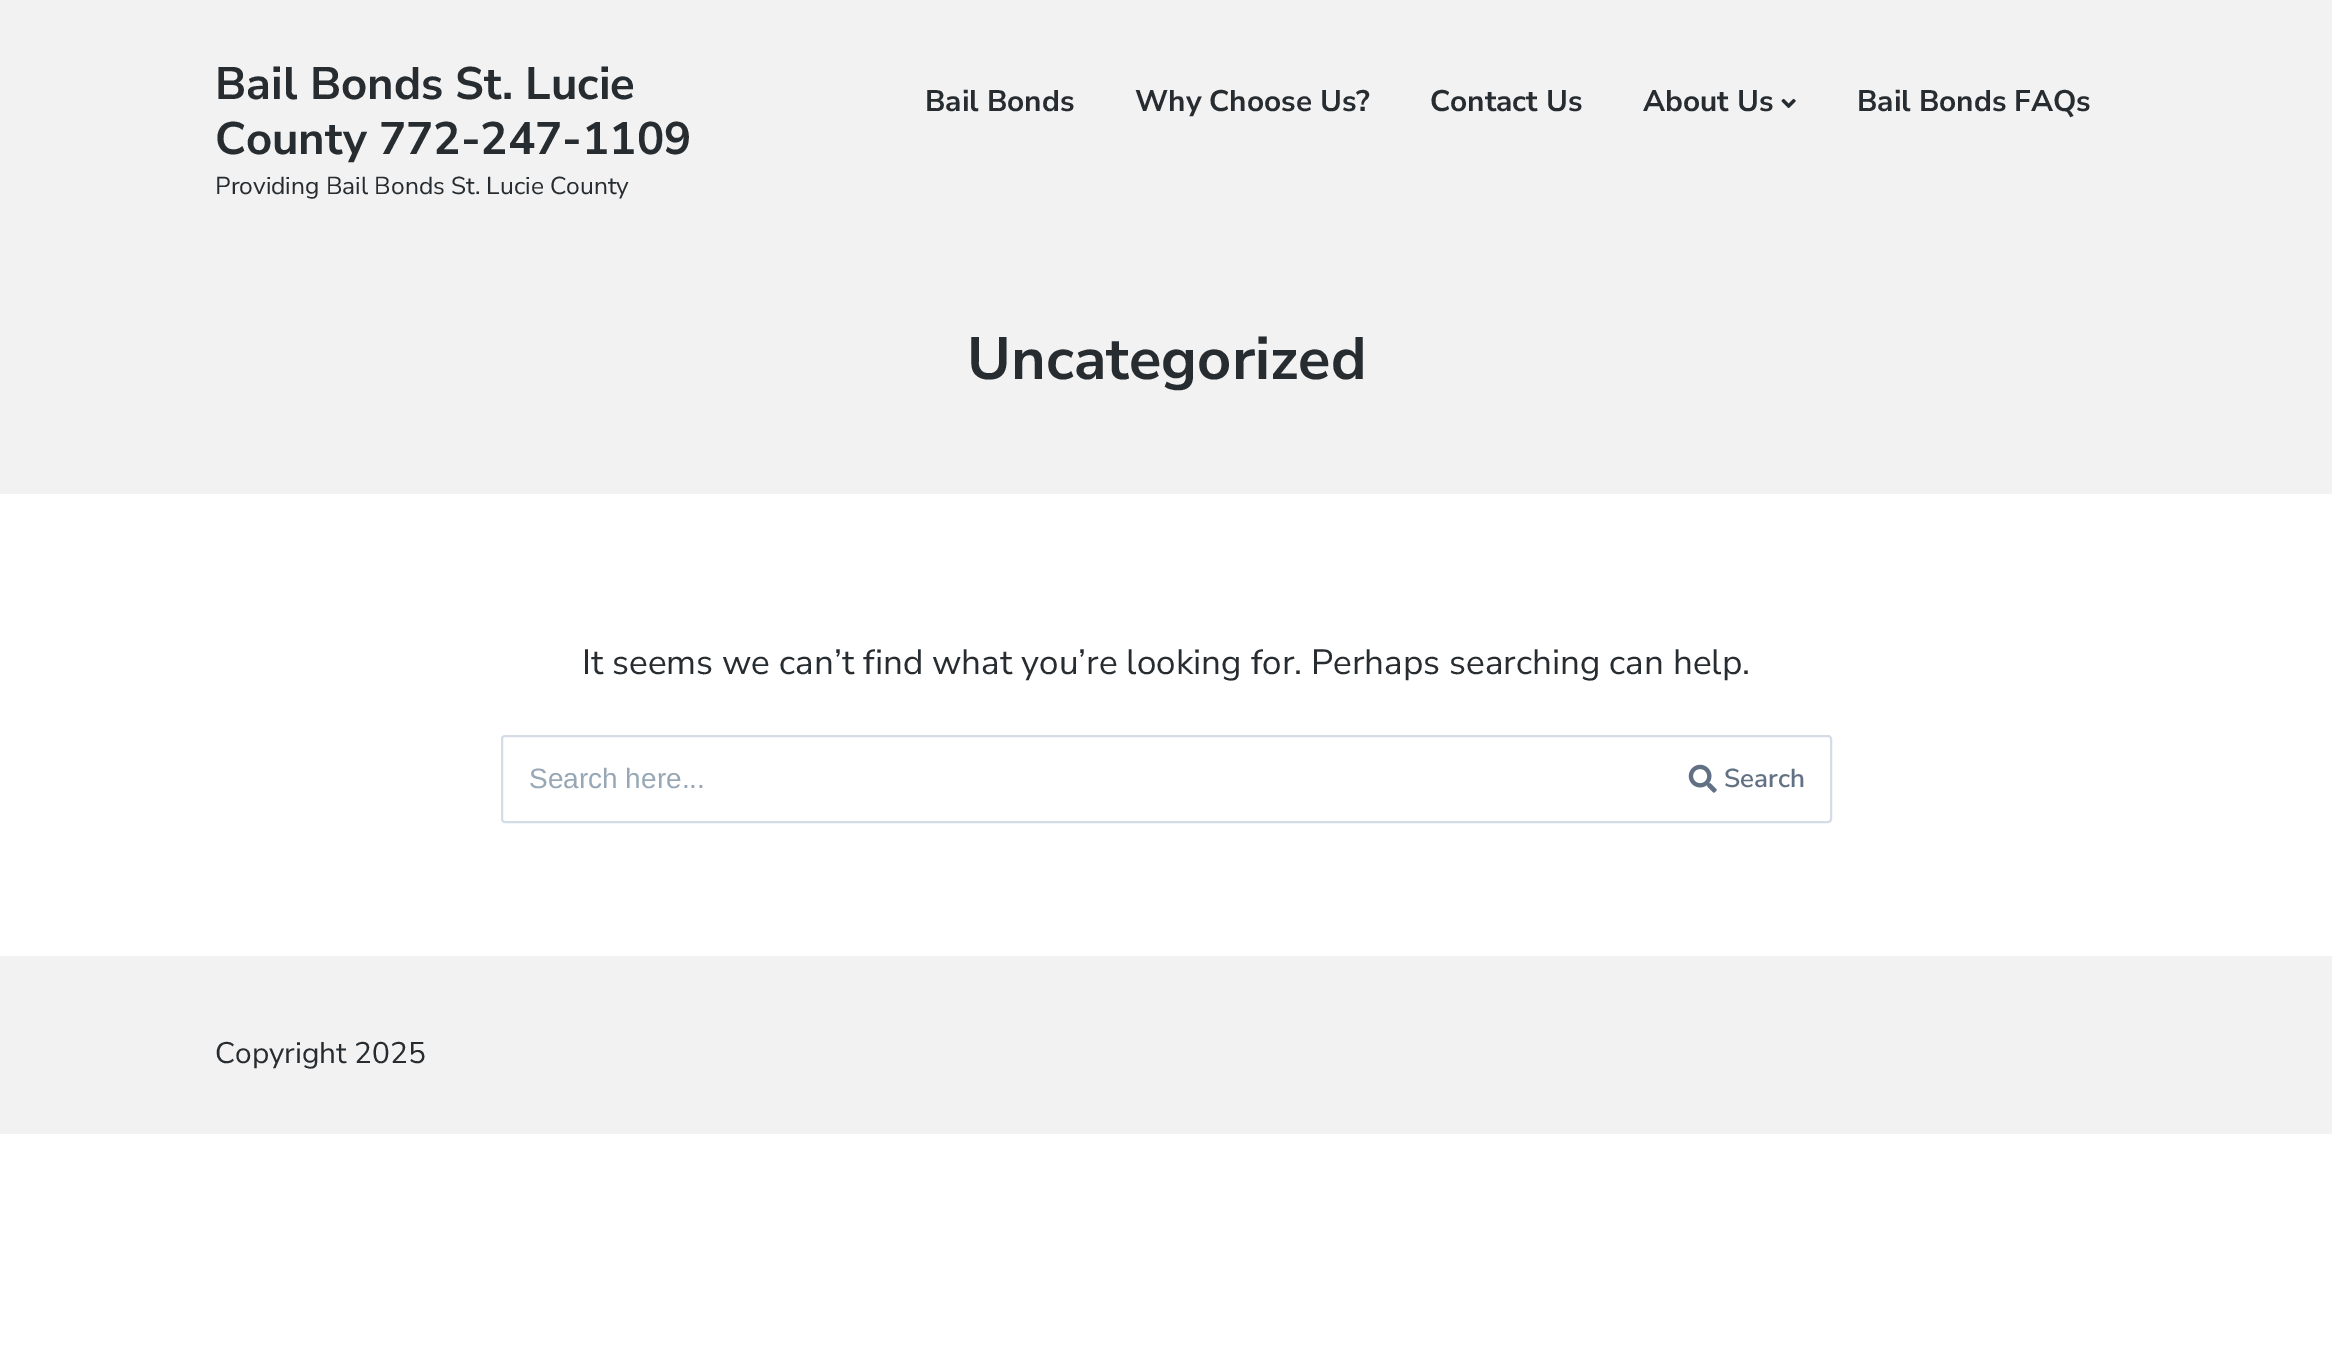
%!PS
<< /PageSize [2332 1357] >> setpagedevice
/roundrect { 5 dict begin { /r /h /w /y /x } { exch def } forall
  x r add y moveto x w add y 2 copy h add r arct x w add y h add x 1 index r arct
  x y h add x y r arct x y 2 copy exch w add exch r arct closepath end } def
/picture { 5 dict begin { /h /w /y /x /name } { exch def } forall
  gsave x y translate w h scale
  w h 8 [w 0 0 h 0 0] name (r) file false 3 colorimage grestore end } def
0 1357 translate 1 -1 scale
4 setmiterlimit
1 setgray
0 0 2332 1357 rectfill
0.949 setgray
0 0 2332 494 rectfill
/NunitoSans-Bold [45.5 0 0 -45.5 0 0] selectfont
0.153 0.173 0.188 setrgbcolor
215 99 moveto (Bail Bonds St. Lucie) show
215 154 moveto (County 772-247-1109) show
/NunitoSans-Regular [24.5 0 0 -24.5 0 0] selectfont
215 194 moveto (Providing Bail Bonds St. Lucie County) show
/NunitoSans-Bold [29.75 0 0 -29.75 0 0] selectfont
925 111 moveto (Bail Bonds) show
1135 111 moveto (Why Choose Us?) show
1430 111 moveto (Contact Us) show
1643 111 moveto (About Us) show
(img1.rgb) 1781 98 15 10 picture
1857 111 moveto (Bail Bonds FAQs) show
/NunitoSans-Bold [59.5 0 0 -59.5 0 0] selectfont
967 379 moveto (Uncategorized) show
/NunitoSans-Regular [35 0 0 -35 0 0] selectfont
582 674 moveto (It seems we can’t find what you’re looking for. Perhaps searching can help.) show
0.831 0.867 0.898 setrgbcolor
2 setlinewidth
502 736 1329 86 3 roundrect stroke
/LiberationSans-Regular [28 0 0 -28 0 0] selectfont
0.592 0.655 0.71 setrgbcolor
529 788 moveto (Search here...) show
(img2.rgb) 1688 764 29 29 picture
/NunitoSans-SemiBold [26 0 0 -26 0 0] selectfont
0.384 0.439 0.514 setrgbcolor
1724 787 moveto (Search) show
0.949 setgray
0 956 2332 178 rectfill
/NunitoSans-Regular [29.75 0 0 -29.75 0 0] selectfont
0.153 0.173 0.188 setrgbcolor
215 1063 moveto (Copyright 2025) show
showpage
